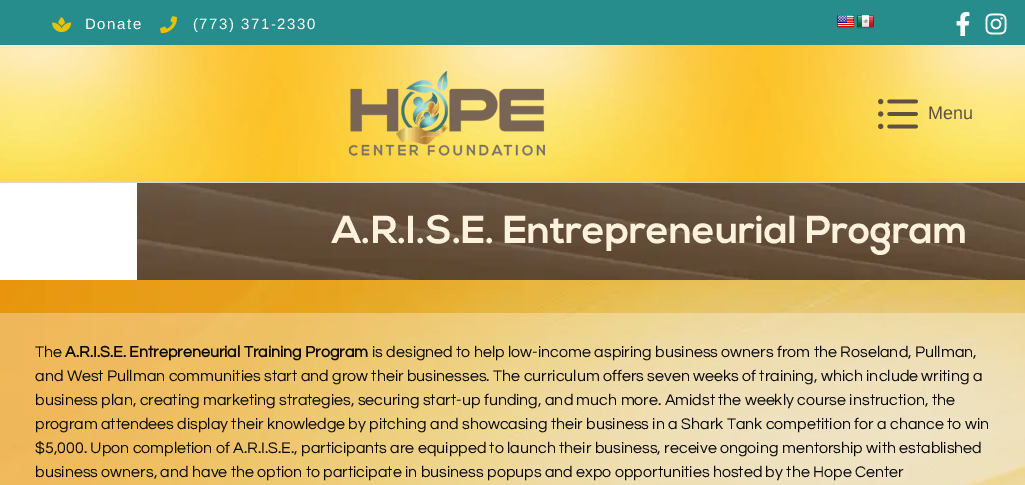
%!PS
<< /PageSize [1025 485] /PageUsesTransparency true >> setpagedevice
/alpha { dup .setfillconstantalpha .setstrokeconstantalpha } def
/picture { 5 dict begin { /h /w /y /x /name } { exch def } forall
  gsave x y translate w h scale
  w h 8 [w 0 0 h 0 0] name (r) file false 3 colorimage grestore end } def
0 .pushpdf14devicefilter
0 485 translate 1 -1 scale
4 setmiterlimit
1 setgray
0 0 1025 485 rectfill
0.149 0.549 0.549 setrgbcolor
0 0 1025 45 rectfill
(img1.rgb) 52 17 20 16 picture
/LiberationSans-Regular [15 0 0 -15 0 0] selectfont
1 setgray
85 29 moveto 1.5 0 (Donate) ashow
(img2.rgb) 160 16 17 18 picture
193 29 moveto 1.5 0 (\(773\) 371-2330) ashow
(img3.rgb) 837 15 17 13 picture
(img4.rgb) 856 15 18 14 picture
(img5.rgb) 956 12 14 24 picture
(img6.rgb) 985 13 22 22 picture
(img7.rgb) 0 45 1025 137 picture
0.847 setgray
0 182 1025 1 rectfill
(img8.rgb) 349 71 196 85 picture
(img9.rgb) 878 98 40 32 picture
/LiberationSans-Regular [18 0 0 -18 0 0] selectfont
0.376 0.314 0.255 setrgbcolor
928 119 moveto (Menu) show
(img10.rgb) 137 183 888 97 picture
/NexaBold-Bold [39 0 0 -39 0 0] selectfont
1 0.949 0.867 setrgbcolor
332 243 moveto (A.R.I.S.E. Entrepreneurial Program) show
(img11.rgb) 0 280 1025 205 picture
0.31 alpha
1 setgray
0 313 1025 172 rectfill
/Questrial-Regular [16 0 0 -16 0 0] selectfont
1 alpha
0.039 setgray
35 357 moveto (The) show
/Questrial-Bold [16 0 0 -16 0 0] selectfont
65 357 moveto (A.R.I.S.E. Entrepreneurial Training Program) show
/Questrial-Regular [16 0 0 -16 0 0] selectfont
372 357 moveto (is designed to help low-income aspiring business owners from the Roseland, Pullman,) show
35 381 moveto (and West Pullman communities start and grow their businesses. The curriculum offers seven weeks of training, which include writing a) show
35 405 moveto (business plan, creating marketing strategies, securing start-up funding, and much more. Amidst the weekly course instruction, the) show
35 429 moveto (program attendees display their knowledge by pitching and showcasing their business in a Shark Tank competition for a chance to win) show
35 453 moveto ($5,000. Upon completion of A.R.I.S.E., participants are equipped to launch their business, receive ongoing mentorship with established) show
35 477 moveto (business owners, and have the option to participate in business popups and expo opportunities hosted by the Hope Center) show
.poppdf14devicefilter showpage
